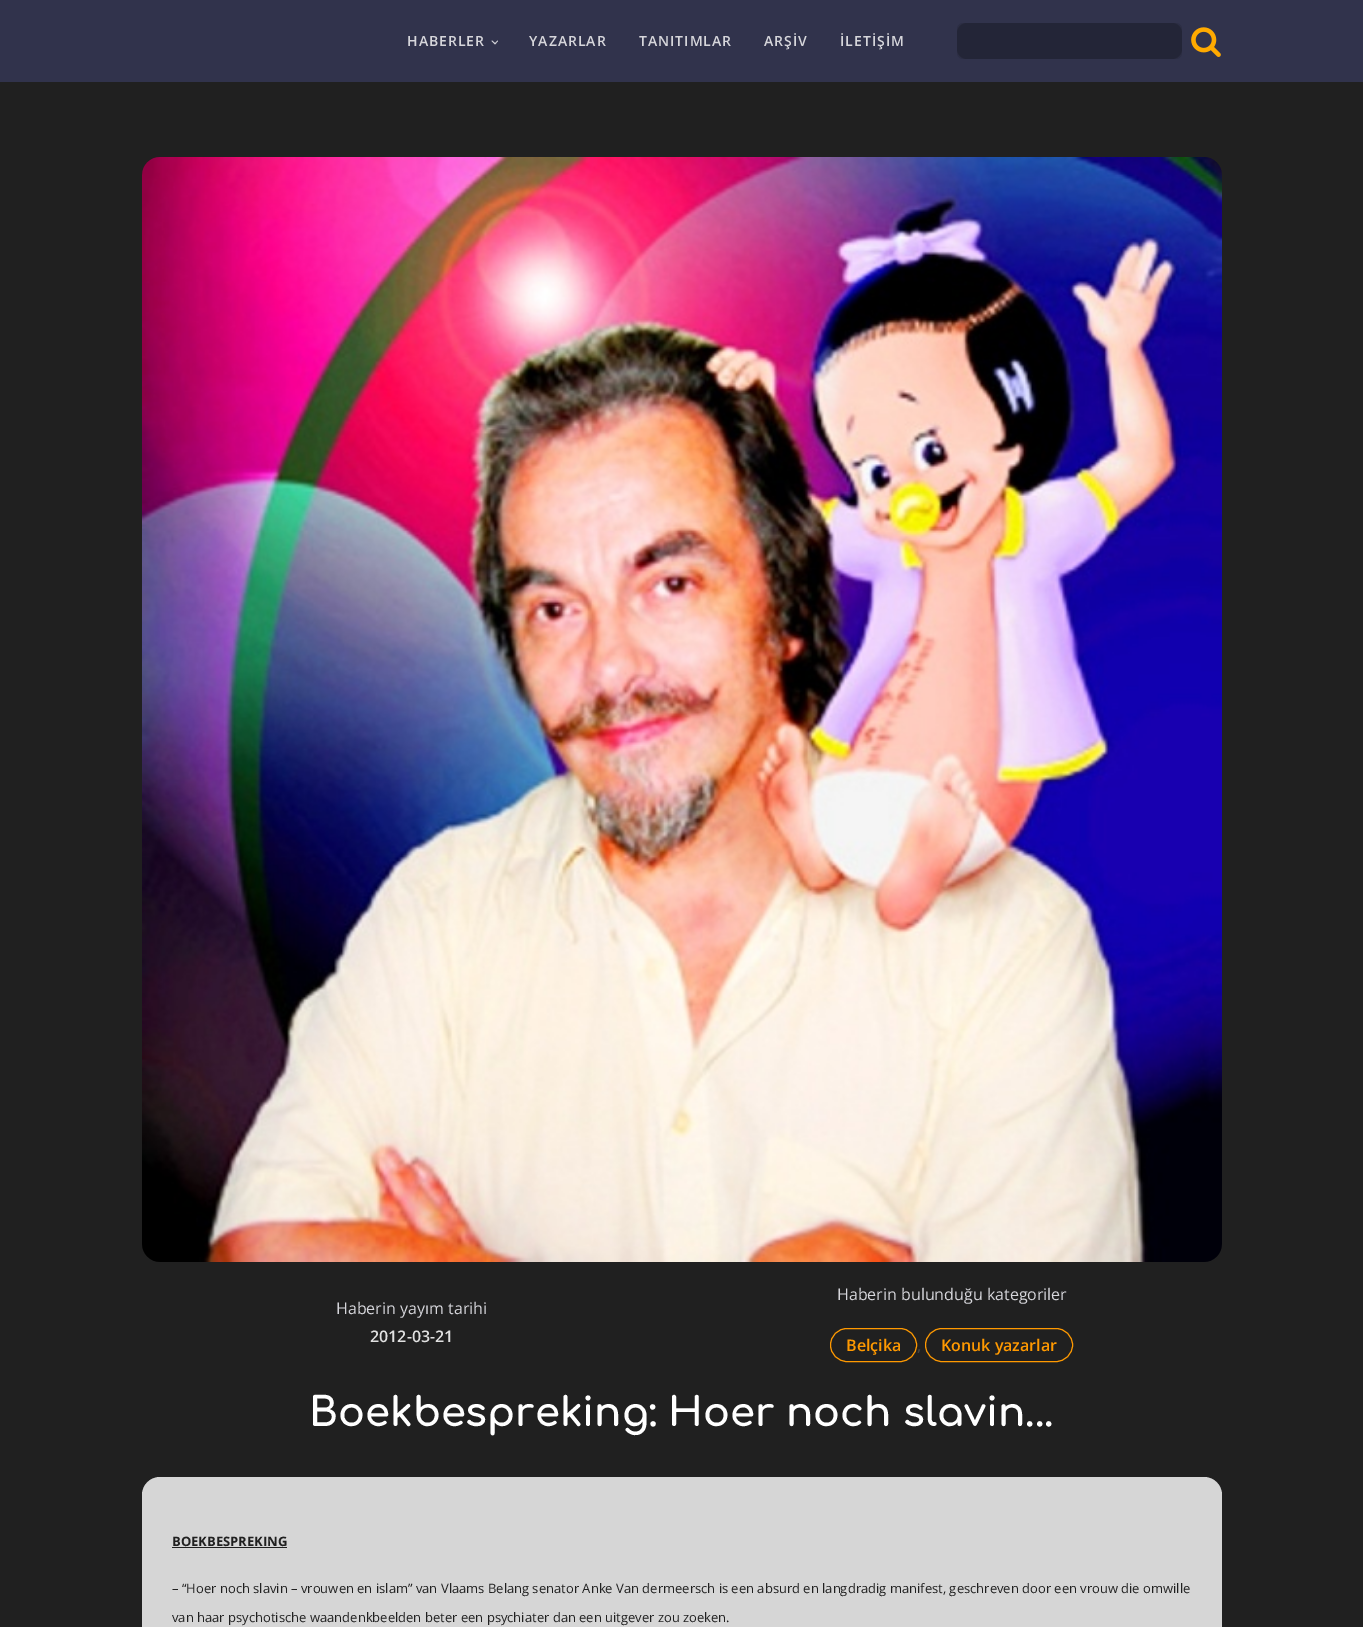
%!PS
<< /PageSize [1363 1627] /PageUsesTransparency true >> setpagedevice
/alpha { dup .setfillconstantalpha .setstrokeconstantalpha } def
/roundrect { 5 dict begin { /r /h /w /y /x } { exch def } forall
  x r add y moveto x w add y 2 copy h add r arct x w add y h add x 1 index r arct
  x y h add x y r arct x y 2 copy exch w add exch r arct closepath end } def
/picture { 5 dict begin { /h /w /y /x /name } { exch def } forall
  gsave x y translate w h scale
  w h 8 [w 0 0 h 0 0] name (r) file false 3 colorimage grestore end } def
0 .pushpdf14devicefilter
0 1627 translate 1 -1 scale
4 setmiterlimit
0.192 0.2 0.298 setrgbcolor
0 0 1363 1627 rectfill
/OpenSans-SemiBold [14 0 0 -14 0 0] selectfont
0.839 0.839 0.859 setrgbcolor
407 46 moveto 1 0 (HABERLER) ashow
newpath 498 41 moveto 495 44.5 lineto 495 43 lineto 497.5 40.5 lineto closepath 495 44.5 moveto 491.5 41 lineto 492 40.5 lineto 495 43 lineto closepath fill
529 46 moveto 1 0 (YAZARLAR) ashow
639 46 moveto 1 0 (TANITIMLAR) ashow
764 46 moveto 1 0 (ARŞİV) ashow
840 46 moveto 1 0 (İLETİŞİM) ashow
0.153 0.161 0.239 setrgbcolor
957 23 225 36 10 roundrect fill
0.1 alpha
0 setgray
957 23 225 36 6 roundrect fill
1 alpha
(img1.rgb) 1191 27 30 30 picture
0.125 setgray
0 82 1363 1545 rectfill
(img2.rgb) 142 157 1080 1105 picture
/OpenSans-Regular [16 0 0 -16 0 0] selectfont
0.839 0.839 0.859 setrgbcolor
336 1314 moveto (Haberin yayım tarihi) show
/OpenSans-SemiBold [16 0 0 -16 0 0] selectfont
0.878 setgray
370 1342 moveto (2012-03-21) show
/OpenSans-Regular [16 0 0 -16 0 0] selectfont
0.839 0.839 0.859 setrgbcolor
837 1300 moveto (Haberin bulunduğu kategoriler) show
1 0.6 0 setrgbcolor
830.5 1328.5 86 33 16.5 roundrect stroke
/OpenSans-SemiBold [16 0 0 -16 0 0] selectfont
846 1351 moveto (Belçika) show
0.251 setgray
917 1351 moveto (,) show
1 0.6 0 setrgbcolor
925.5 1328.5 147 33 16.5 roundrect stroke
941 1351 moveto (Konuk yazarlar) show
/Comfortaa-Bold [40 0 0 -40 0 0] selectfont
1 setgray
309 1426 moveto (Boekbespreking: Hoer noch slavin...) show
0.839 setgray
142 1477 1080 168 18 roundrect fill
/OpenSans-Bold [13 0 0 -13 0 0] selectfont
0.125 setgray
172 1546 moveto (BOEKBESPREKING) show
172 1547 115 1 rectfill
/OpenSans-Regular [13 0 0 -13 0 0] selectfont
172 1593 moveto (– “Hoer noch slavin – vrouwen en islam” van Vlaams Belang senator Anke Van dermeersch is een absurd en langdradig manifest, geschreven door een vrouw die omwille) show
172 1622 moveto (van haar psychotische waandenkbeelden beter een psychiater dan een uitgever zou zoeken.) show
.poppdf14devicefilter showpage
